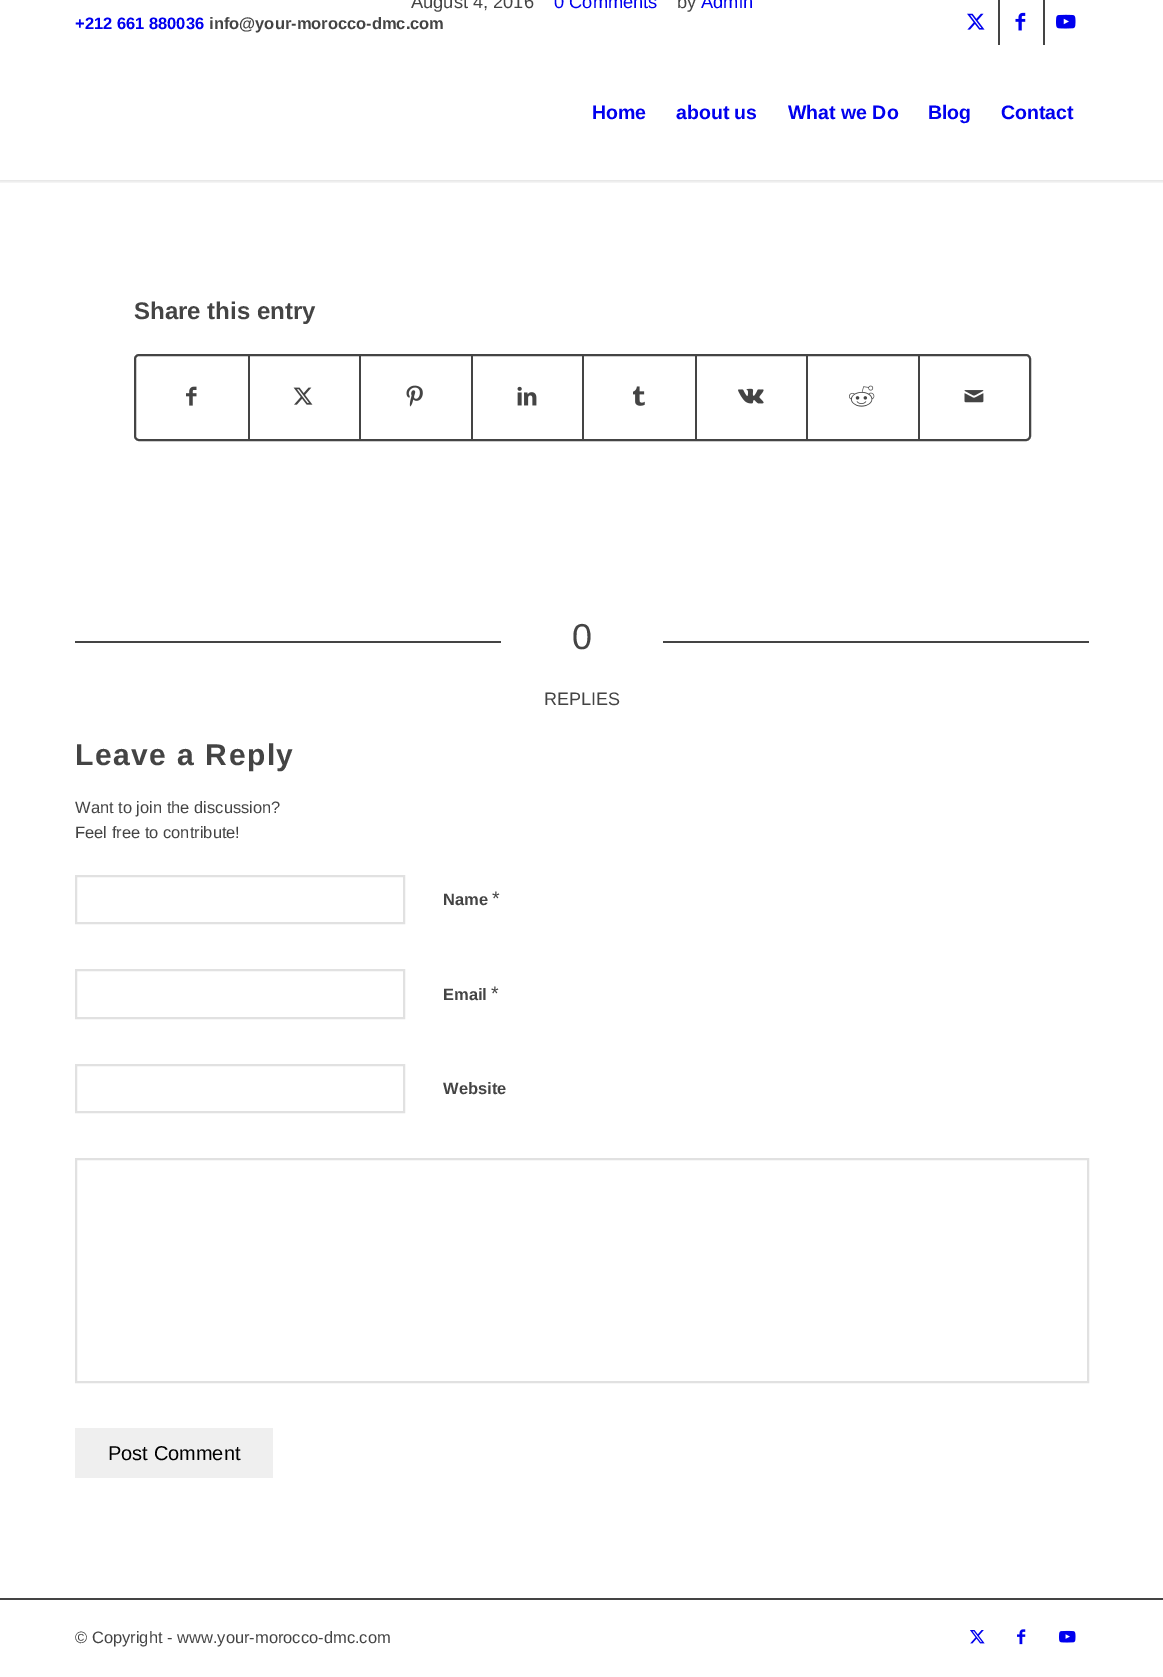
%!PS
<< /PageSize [1163 1677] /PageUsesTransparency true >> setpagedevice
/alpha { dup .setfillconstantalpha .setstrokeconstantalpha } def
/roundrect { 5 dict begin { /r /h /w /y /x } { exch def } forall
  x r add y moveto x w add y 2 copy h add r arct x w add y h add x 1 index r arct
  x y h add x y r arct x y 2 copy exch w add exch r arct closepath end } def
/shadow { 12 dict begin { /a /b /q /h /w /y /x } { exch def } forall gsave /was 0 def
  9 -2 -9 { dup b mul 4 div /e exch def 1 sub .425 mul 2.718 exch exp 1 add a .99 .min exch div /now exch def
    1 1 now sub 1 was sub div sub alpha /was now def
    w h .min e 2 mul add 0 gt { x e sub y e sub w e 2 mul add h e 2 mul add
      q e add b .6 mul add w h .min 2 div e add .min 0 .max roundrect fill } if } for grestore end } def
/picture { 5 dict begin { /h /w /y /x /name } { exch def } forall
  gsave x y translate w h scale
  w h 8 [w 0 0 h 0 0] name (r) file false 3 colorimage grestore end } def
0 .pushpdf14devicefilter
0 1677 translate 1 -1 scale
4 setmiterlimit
1 setgray
0 0 1163 1677 rectfill
/LiberationSans-Regular [18.25 0 0 -18.25 0 0] selectfont
0.267 setgray
411 8 moveto (August 4, 2016) show
0 0 0.933 setrgbcolor
554 8 moveto (0 Comments) show
0.267 setgray
677 8 moveto (by) show
0 0 0.933 setrgbcolor
701 8 moveto (Admin) show
/LiberationSans-Bold [24 0 0 -24 0 0] selectfont
0.267 setgray
134 319 moveto (Share this entry) show
2 setlinewidth
135 355 895 85 4 roundrect stroke
(img1.rgb) 186 386 11 20 picture
248 356 2 84 rectfill
(img2.rgb) 293 387 20 18 picture
359 356 2 84 rectfill
(img3.rgb) 406 385 17 22 picture
471 356 2 84 rectfill
(img4.rgb) 517 386 20 20 picture
582 356 2 84 rectfill
(img5.rgb) 633 386 12 20 picture
695 356 2 84 rectfill
(img6.rgb) 738 388 26 16 picture
806 356 2 84 rectfill
(img7.rgb) 849 385 26 22 picture
918 356 2 84 rectfill
(img8.rgb) 964 390 20 13 picture
75 641 426 2 rectfill
/LiberationSans-Regular [36 0 0 -36 0 0] selectfont
572 649 moveto (0) show
663 641 426 2 rectfill
/LiberationSans-Regular [18 0 0 -18 0 0] selectfont
544 705 moveto (REPLIES) show
/LiberationSans-Bold [30 0 0 -30 0 0] selectfont
75 765 moveto 1.5 0 (Leave a Reply) ashow
/LiberationSans-Regular [16.5 0 0 -16.5 0 0] selectfont
75 813 moveto (Want to join the discussion?) show
75 838 moveto (Feel free to contribute!) show
0.882 setgray
76 876 328 47 rectstroke
/LiberationSans-Bold [16.5 0 0 -16.5 0 0] selectfont
0.267 setgray
443 905 moveto (Name) show
/LiberationSans-Regular [19.5 0 0 -19.5 0 0] selectfont
492 905 moveto (*) show
0.882 setgray
76 970 328 48 rectstroke
/LiberationSans-Bold [16.5 0 0 -16.5 0 0] selectfont
0.267 setgray
443 1000 moveto (Email) show
/LiberationSans-Regular [19.5 0 0 -19.5 0 0] selectfont
491 1000 moveto (*) show
0.882 setgray
76 1065 328 47 rectstroke
/LiberationSans-Bold [16.5 0 0 -16.5 0 0] selectfont
0.267 setgray
443 1094 moveto (Website) show
0.882 setgray
76 1159 1012 223 rectstroke
0.937 setgray
75 1428 198 50 rectfill
/LiberationSans-Regular [20 0 0 -20 0 0] selectfont
0 setgray
108 1460 moveto (Post Comment) show
0.267 setgray
0 1598 1163 2 rectfill
/LiberationSans-Regular [16.5 0 0 -16.5 0 0] selectfont
75 1643 moveto (© Copyright - www.your-morocco-dmc.com) show
(img9.rgb) 970 1630 15 14 picture
(img10.rgb) 1017 1629 9 16 picture
(img11.rgb) 1059 1630 17 13 picture
gsave
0 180 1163 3 rectclip
0 setgray
-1 -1 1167 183 0 1.5 0.1 shadow
grestore
/LiberationSans-Bold [16.5 0 0 -16.5 0 0] selectfont
0 0 0.933 setrgbcolor
75 29 moveto (+212 661 880036) show
0.267 setgray
209 29 moveto (info@your-morocco-dmc.com) show
998 0 2 45 rectfill
(img12.rgb) 967 13 18 17 picture
1043 0 2 45 rectfill
(img13.rgb) 1015 12 11 19 picture
(img14.rgb) 1056 14 20 15 picture
/LiberationSans-Bold [19.5 0 0 -19.5 0 0] selectfont
0 0 0.933 setrgbcolor
592 119 moveto (Home) show
676 119 moveto (about us) show
788 119 moveto (What we Do) show
928 119 moveto (Blog) show
1001 119 moveto (Contact) show
.poppdf14devicefilter showpage
